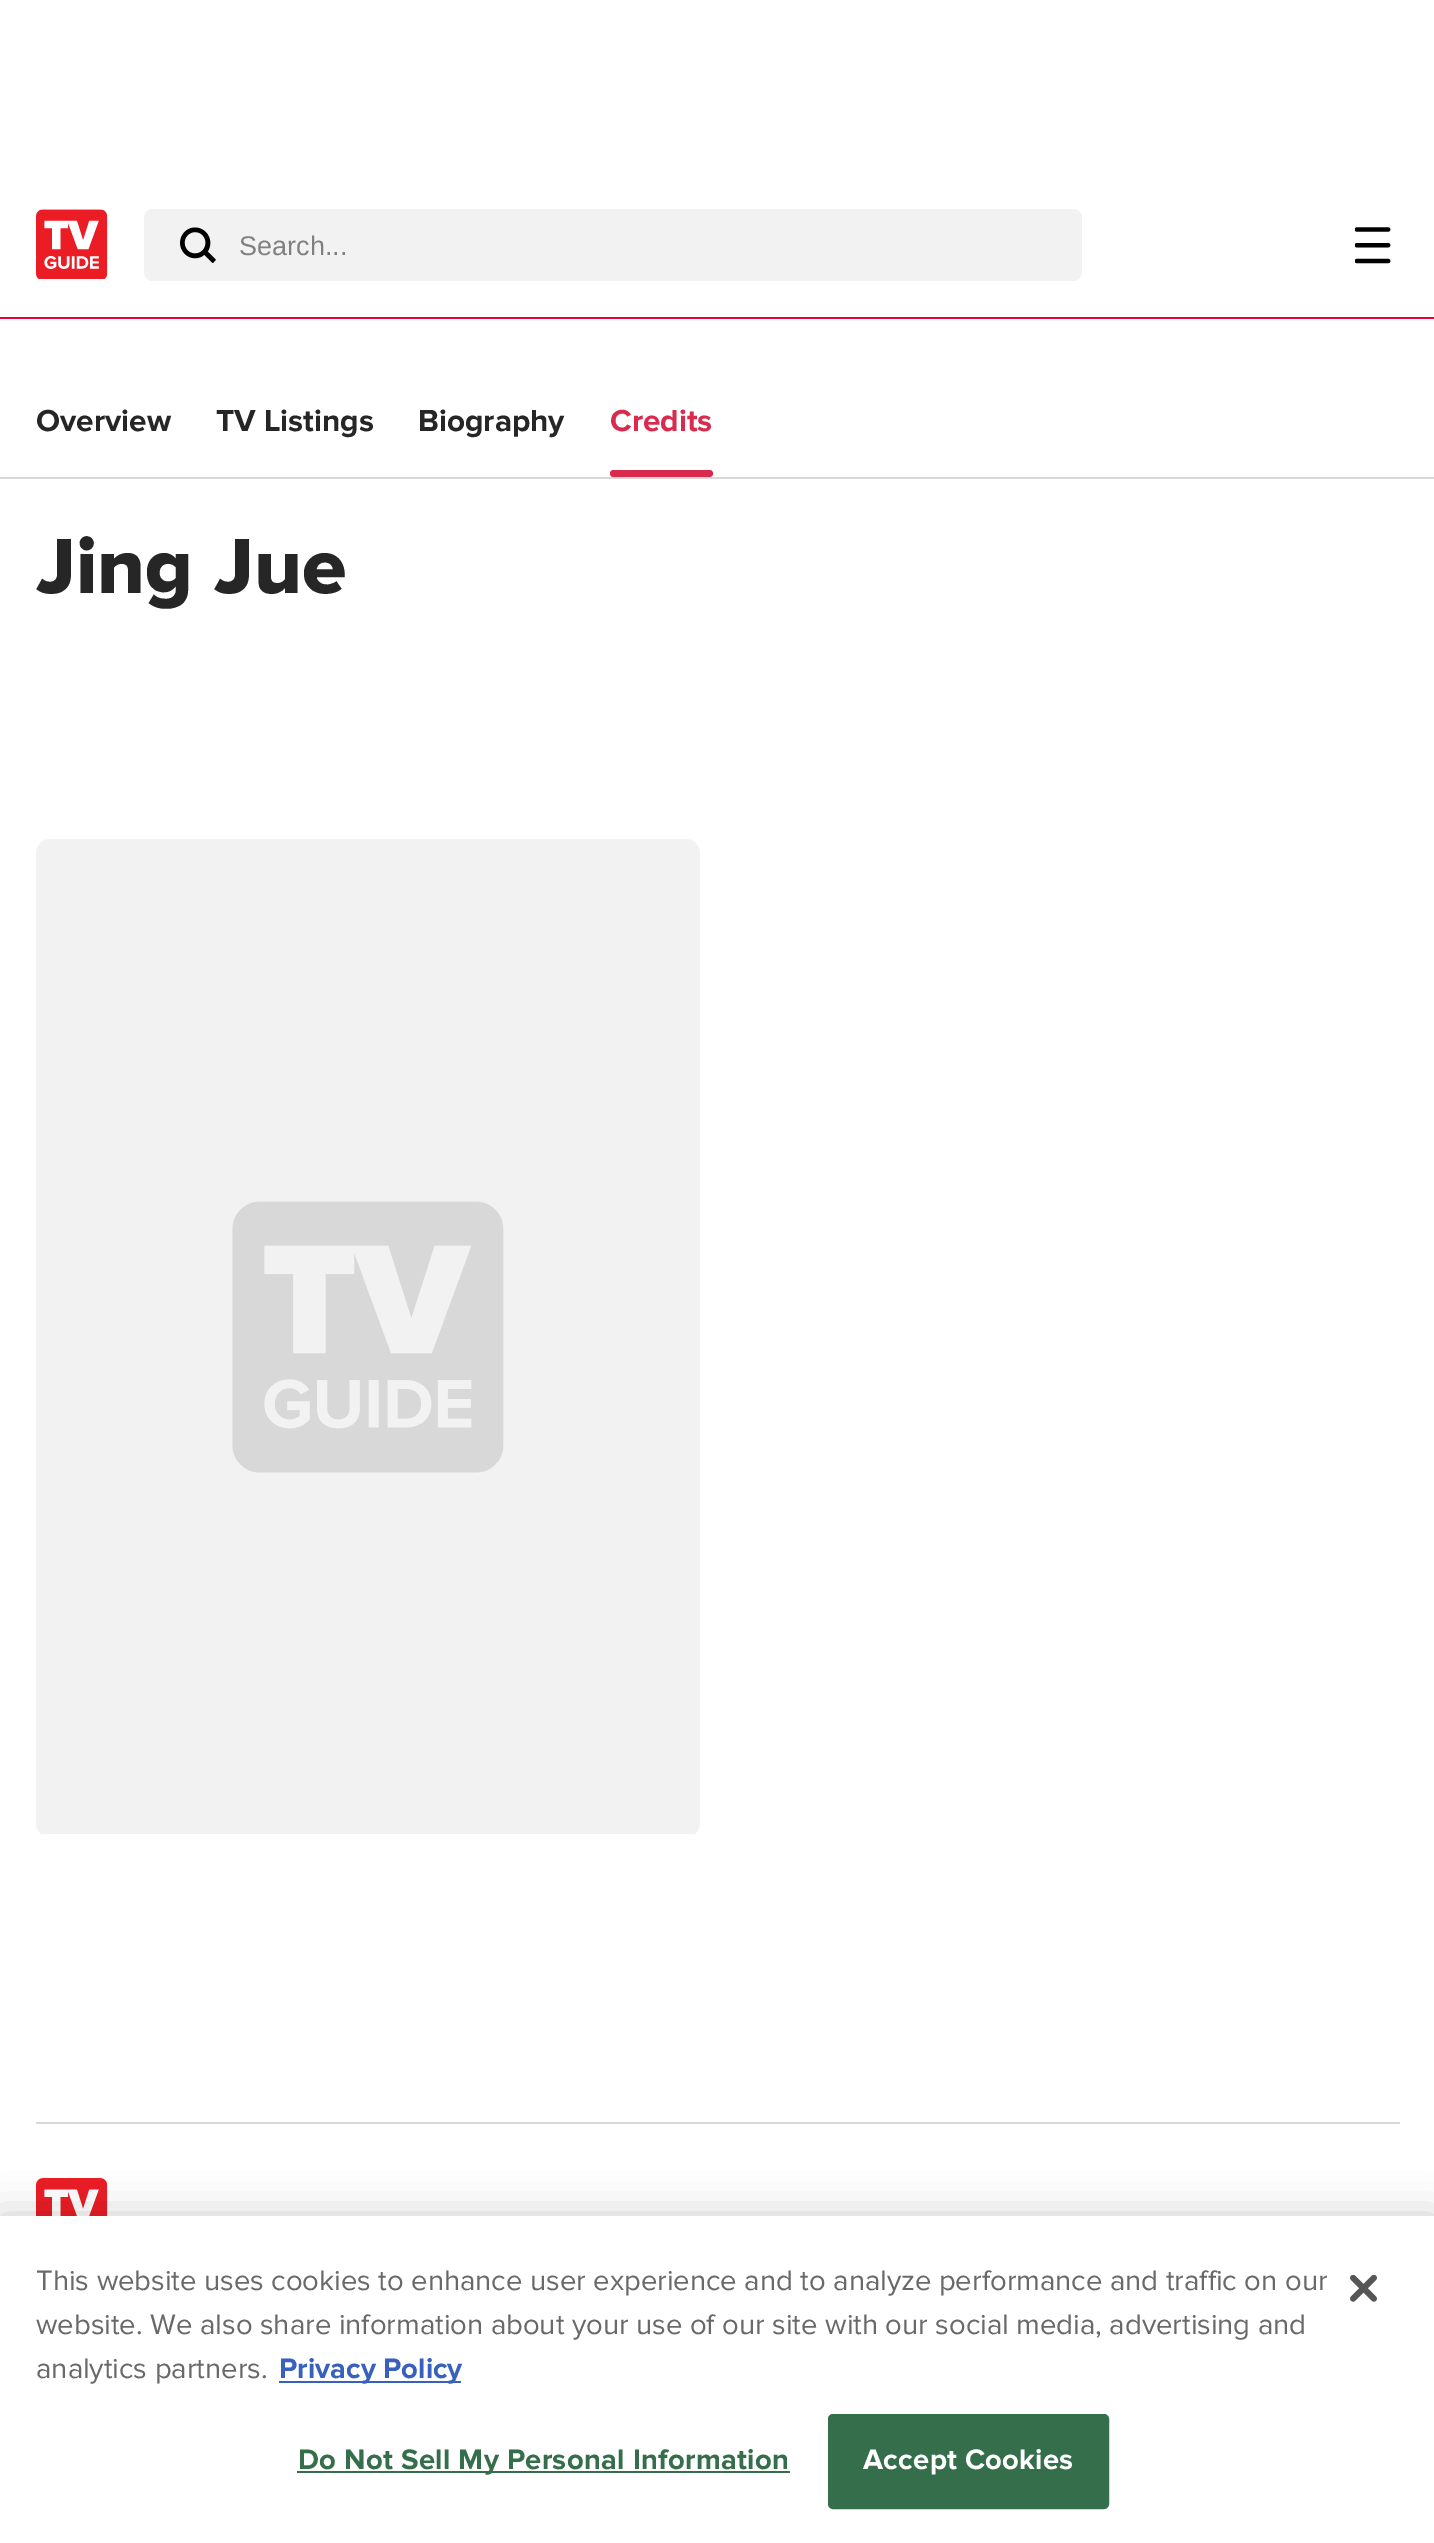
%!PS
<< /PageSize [1434 2543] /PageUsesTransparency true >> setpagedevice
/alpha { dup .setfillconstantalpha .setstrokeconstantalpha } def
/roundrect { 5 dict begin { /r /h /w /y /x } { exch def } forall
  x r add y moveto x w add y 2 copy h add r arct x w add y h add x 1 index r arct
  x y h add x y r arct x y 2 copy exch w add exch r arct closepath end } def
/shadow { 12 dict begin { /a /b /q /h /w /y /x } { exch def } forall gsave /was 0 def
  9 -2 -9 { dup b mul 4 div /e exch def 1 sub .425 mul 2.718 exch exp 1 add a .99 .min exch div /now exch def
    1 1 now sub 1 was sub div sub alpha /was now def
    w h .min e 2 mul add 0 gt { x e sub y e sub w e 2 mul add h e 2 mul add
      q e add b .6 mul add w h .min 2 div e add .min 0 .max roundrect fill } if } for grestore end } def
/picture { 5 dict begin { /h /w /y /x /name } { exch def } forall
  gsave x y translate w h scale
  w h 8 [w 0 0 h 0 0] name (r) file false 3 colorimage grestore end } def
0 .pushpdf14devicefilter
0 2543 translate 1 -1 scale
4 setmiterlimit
1 setgray
0 0 1434 2543 rectfill
0.922 0 0.212 setrgbcolor
0 317 1434 2 rectfill
(img1.rgb) 36 209 72 70 picture
0.949 setgray
144 209 938 72 9 roundrect fill
(img2.rgb) 180 227 36 36 picture
/LiberationSans-Regular [27 0 0 -27 0 0] selectfont
0.502 setgray
239 255 moveto (Search...) show
(img3.rgb) 1355 227 36 37 picture
0.847 setgray
0 477 1434 2 rectfill
/ProximaNova-Bold [31.5 0 0 -31.5 0 0] selectfont
0.149 setgray
36 431 moveto (Overview) show
216 431 moveto (TV Listings) show
418 431 moveto (Biography) show
0.847 0.169 0.306 setrgbcolor
610 431 moveto (Credits) show
610 470 103 7 3.5 roundrect fill
/ProximaNova-ExtraBold [81 0 0 -81 0 0] selectfont
0.149 setgray
36 593 moveto (Jing Jue) show
(img4.rgb) 36 839 664 995 picture
0.847 setgray
36 2122 1364 2 rectfill
(img5.rgb) 36 2178 72 38 picture
0 setgray
0 2216 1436 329 0 20 0.2 shadow
1 setgray
0 2216 1434 327 rectfill
/ProximaNova-Regular [29.25 0 0 -29.25 0 0] selectfont
0.412 setgray
36 2290 moveto (This website uses cookies to enhance user experience and to analyze performance and traffic on our) show
36 2334 moveto (website. We also share information about your use of our site with our social media, advertising and) show
36 2378 moveto (analytics partners.) show
0.22 0.376 0.745 setrgbcolor
279 2381 182 2 rectfill
/ProximaNova-Bold [29.25 0 0 -29.25 0 0] selectfont
279 2378 moveto (Privacy Policy) show
0.204 0.431 0.29 setrgbcolor
297 2471 493 2 rectfill
298 2469 moveto 0.3 0 (Do Not Sell My Personal Information) ashow
829 2415 279 93 4 roundrect gsave fill grestore
2 setlinewidth
stroke
1 setgray
863 2469 moveto 0.3 0 (Accept Cookies) ashow
(img6.rgb) 1350 2275 27 27 picture
.poppdf14devicefilter showpage
